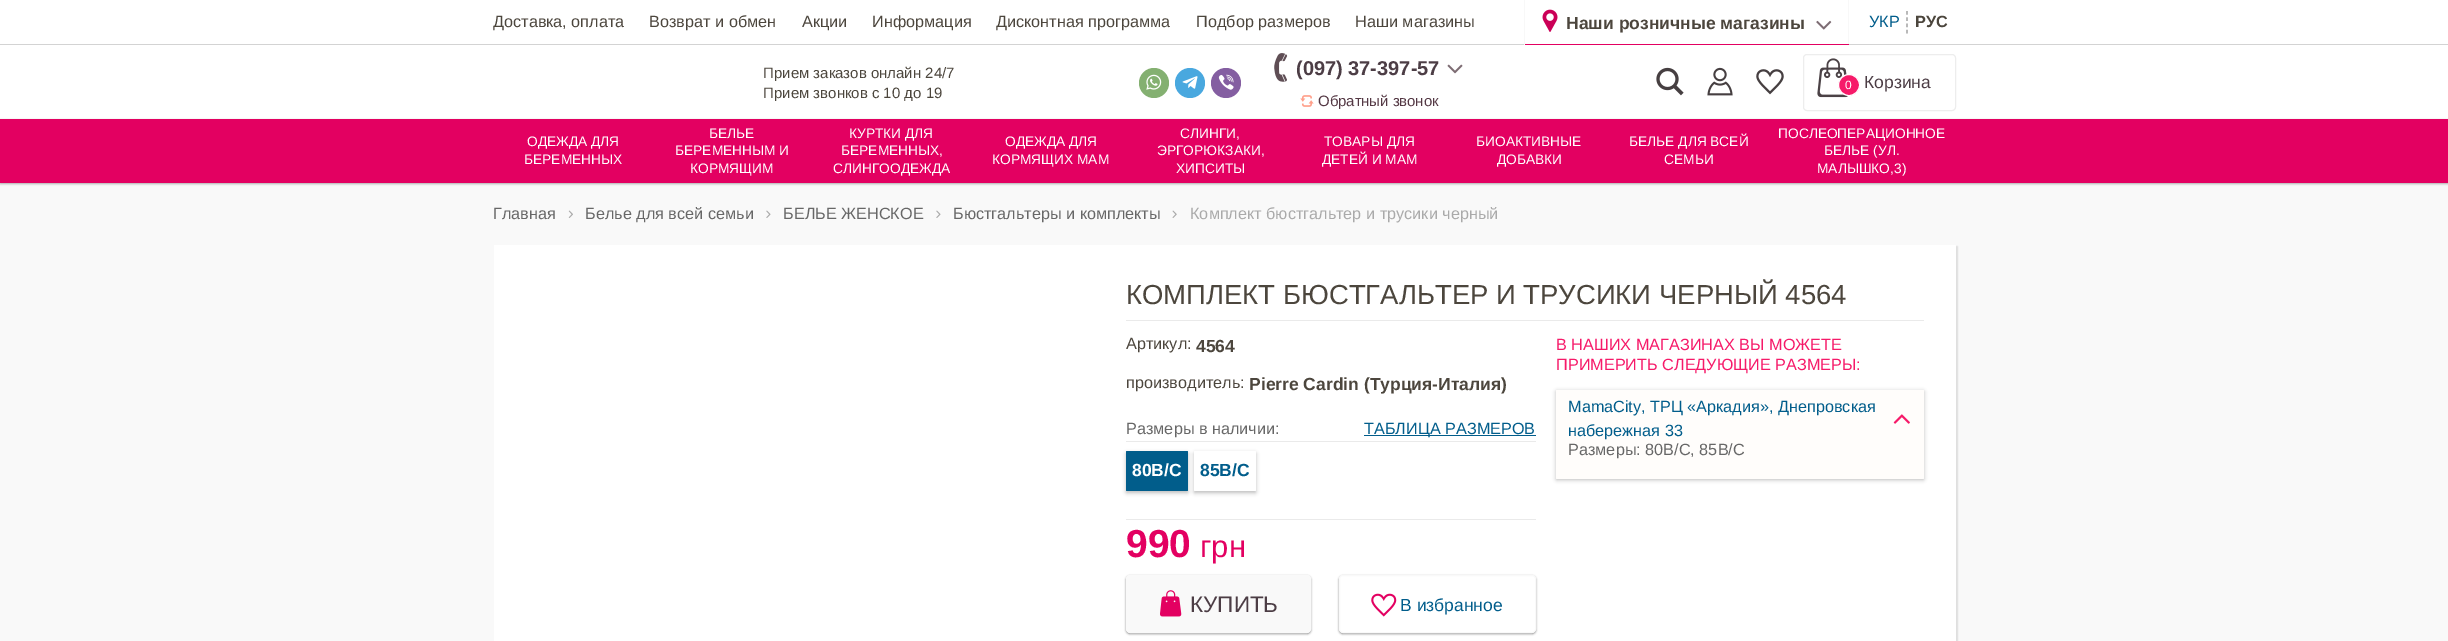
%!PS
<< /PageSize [2448 641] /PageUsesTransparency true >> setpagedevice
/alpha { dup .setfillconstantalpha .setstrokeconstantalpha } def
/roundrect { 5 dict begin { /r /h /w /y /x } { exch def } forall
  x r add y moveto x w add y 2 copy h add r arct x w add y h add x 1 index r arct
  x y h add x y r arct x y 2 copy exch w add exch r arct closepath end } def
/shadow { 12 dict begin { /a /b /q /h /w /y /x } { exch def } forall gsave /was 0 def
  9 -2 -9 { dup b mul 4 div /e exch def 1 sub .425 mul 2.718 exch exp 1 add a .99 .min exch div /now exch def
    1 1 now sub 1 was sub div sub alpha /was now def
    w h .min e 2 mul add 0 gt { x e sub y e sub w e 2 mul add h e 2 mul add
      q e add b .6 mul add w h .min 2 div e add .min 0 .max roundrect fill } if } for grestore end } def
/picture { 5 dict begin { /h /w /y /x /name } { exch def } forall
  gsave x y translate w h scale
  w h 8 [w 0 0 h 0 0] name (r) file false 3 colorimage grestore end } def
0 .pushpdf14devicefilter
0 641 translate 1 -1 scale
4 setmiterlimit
0.976 setgray
0 0 2448 641 rectfill
1 setgray
0 0 2448 119 rectfill
0.827 setgray
0 44 2448 1 rectfill
/LiberationSans-Regular [16.25 0 0 -16.25 0 0] selectfont
0.298 0.275 0.239 setrgbcolor
493 27 moveto (Доставка, оплата) show
649 27 moveto (Возврат и обмен) show
802 27 moveto (Акции) show
872 27 moveto (Информация) show
996 27 moveto (Дисконтная программа) show
1196 27 moveto (Подбор размеров) show
1355 27 moveto (Наши магазины) show
0.973 setgray
1848 0 1 45 rectfill
0.89 0 0.38 setrgbcolor
1524 44 325 1 rectfill
0.973 setgray
1524 0 1 45 rectfill
(img1.rgb) 1542 9 16 23 picture
/LiberationSans-Bold [17.5 0 0 -17.5 0 0] selectfont
0.298 0.275 0.239 setrgbcolor
1566 29 moveto (Наши розничные магазины) show
(img2.rgb) 1816 20 16 10 picture
0.627 setgray
1.2 setlinewidth
[3.75 2.5] 0 setdash
newpath 1907 11 moveto 1907 34 lineto stroke
/LiberationSans-Regular [16.25 0 0 -16.25 0 0] selectfont
0.004 0.365 0.545 setrgbcolor
1869 27 moveto (УКР) show
/LiberationSans-Bold [16.25 0 0 -16.25 0 0] selectfont
0.298 0.275 0.239 setrgbcolor
1915 27 moveto (РУС) show
/LiberationSans-Regular [15 0 0 -15 0 0] selectfont
763 78 moveto (Прием заказов онлайн 24/7) show
763 98 moveto (Прием звонков с 10 до 19) show
0.518 0.69 0.443 setrgbcolor
newpath 1154 83 15 0 360 arc closepath fill
(img3.rgb) 1146 74 16 16 picture
0.286 0.659 0.875 setrgbcolor
newpath 1190 83 15 0 360 arc closepath fill
(img4.rgb) 1182 76 16 13 picture
0.518 0.369 0.631 setrgbcolor
newpath 1226 83 15 0 360 arc closepath fill
(img5.rgb) 1218 74 16 16 picture
(img6.rgb) 1274 53 14 29 picture
/LiberationSans-Bold [20 0 0 -20 0 0] selectfont
0.298 0.239 0.271 setrgbcolor
1296 75 moveto (\(097\) 37-397-57) show
(img7.rgb) 1447 64 16 10 picture
(img8.rgb) 1300 95 14 12 picture
/LiberationSans-Regular [15 0 0 -15 0 0] selectfont
0.329 0.22 0.267 setrgbcolor
1318 106 moveto -0.1 0 (Обратный звонок) ashow
(img9.rgb) 1656 67 28 29 picture
(img10.rgb) 1707 67 26 29 picture
(img11.rgb) 1756 69 28 26 picture
0.929 setgray
1 setlinewidth
[] 0 setdash
1803.5 54.5 152 56 3.5 roundrect stroke
(img12.rgb) 1817 58 32 40 picture
/LiberationSans-Regular [17.5 0 0 -17.5 0 0] selectfont
0.298 0.239 0.271 setrgbcolor
1864 88 moveto (Корзина) show
0.965 0.102 0.412 setrgbcolor
newpath 1849 85 10.5 0 360 arc closepath gsave fill grestore
1 setgray
stroke
/LiberationSans-Regular [12 0 0 -12 0 0] selectfont
1845 89 moveto (0) show
0.133 setgray
0 120 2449 64 0 1 0.35 shadow
0.89 0 0.38 setrgbcolor
0 119 2448 64 rectfill
/LiberationSans-Regular [13.75 0 0 -13.75 0 0] selectfont
1 setgray
527 146 moveto (ОДЕЖДА ДЛЯ) show
524 164 moveto (БЕРЕМЕННЫХ) show
709 138 moveto (БЕЛЬЕ) show
675 155 moveto (БЕРЕМЕННЫМ И) show
690 173 moveto (КОРМЯЩИМ) show
849 138 moveto (КУРТКИ ДЛЯ) show
841 155 moveto (БЕРЕМЕННЫХ,) show
833 173 moveto (СЛИНГООДЕЖДА) show
1005 146 moveto (ОДЕЖДА ДЛЯ) show
992 164 moveto (КОРМЯЩИХ МАМ) show
1180 138 moveto (СЛИНГИ,) show
1157 155 moveto (ЭРГОРЮКЗАКИ,) show
1176 173 moveto (ХИПСИТЫ) show
1324 146 moveto (ТОВАРЫ ДЛЯ) show
1322 164 moveto (ДЕТЕЙ И МАМ) show
1476 146 moveto (БИОАКТИВНЫЕ) show
1497 164 moveto (ДОБАВКИ) show
1629 146 moveto (БЕЛЬЕ ДЛЯ ВСЕЙ) show
1664 164 moveto (СЕМЬИ) show
1778 138 moveto (ПОСЛЕОПЕРАЦИОННОЕ) show
1824 155 moveto (БЕЛЬЕ \(УЛ.) show
1817 173 moveto (МАЛЫШКО,3\)) show
/LiberationSans-Regular [16.25 0 0 -16.25 0 0] selectfont
0.404 setgray
493 219 moveto (Главная) show
(img13.rgb) 568 210 5 8 picture
585 219 moveto (Белье для всей семьи) show
(img14.rgb) 766 210 5 8 picture
783 219 moveto (БЕЛЬЕ ЖЕНСКОЕ) show
(img14.rgb) 936 210 5 8 picture
953 219 moveto (Бюстгальтеры и комплекты) show
(img15.rgb) 1172 210 5 8 picture
0.667 setgray
1190 219 moveto (Комплект бюстгальтер и трусики черный) show
0 setgray
495 246 1463 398 1 0.5 0.1 shadow
1 setgray
494 245 1462 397 1 roundrect fill
/LiberationSans-Regular [27.5 0 0 -27.5 0 0] selectfont
0.298 0.275 0.239 setrgbcolor
1126 304 moveto (КОМПЛЕКТ БЮСТГАЛЬТЕР И ТРУСИКИ ЧЕРНЫЙ 4564) show
0.918 setgray
1126 320 798 1 rectfill
/LiberationSans-Regular [16.25 0 0 -16.25 0 0] selectfont
0.298 0.275 0.239 setrgbcolor
1126 349 moveto (Артикул:) show
/LiberationSans-Bold [17.5 0 0 -17.5 0 0] selectfont
1196 352 moveto (4564) show
/LiberationSans-Regular [16.25 0 0 -16.25 0 0] selectfont
1126 388 moveto (производитель:) show
/LiberationSans-Bold [17.5 0 0 -17.5 0 0] selectfont
1249 390 moveto (Pierre Cardin \(Турция-Италия\)) show
0.918 setgray
1126 519 410 1 rectfill
/LiberationSans-Regular [16.25 0 0 -16.25 0 0] selectfont
0.404 setgray
1126 434 moveto (Размеры в наличии:) show
0.004 0.365 0.545 setrgbcolor
1364 435 172 1 rectfill
1364 434 moveto (ТАБЛИЦА РАЗМЕРОВ) show
0.918 setgray
1126 441 410 1 rectfill
0 setgray
1126 453 62 40 1 2 0.25 shadow
0.004 0.365 0.545 setrgbcolor
1126 451 62 40 1 roundrect fill
/LiberationSans-Bold [17.5 0 0 -17.5 0 0] selectfont
1 setgray
1132 476 moveto (80В/C) show
0 setgray
1194 453 62 40 1 2 0.25 shadow
1 setgray
1194 451 62 40 1 roundrect fill
0.004 0.365 0.545 setrgbcolor
1200 476 moveto (85B/C) show
/LiberationSans-Bold [39 0 0 -39 0 0] selectfont
0.89 0 0.38 setrgbcolor
1126 557 moveto (990) show
/LiberationSans-Regular [31 0 0 -31 0 0] selectfont
1200 557 moveto (грн) show
0 setgray
1126 576 185 58 4 1 0.45 shadow
0.976 setgray
1126.5 575.5 184 57 3.5 roundrect gsave fill grestore
stroke
(img16.rgb) 1160 590 22 27 picture
/LiberationSans-Regular [22.5 0 0 -22.5 0 0] selectfont
0.298 0.239 0.271 setrgbcolor
1190 612 moveto (КУПИТЬ) show
0 setgray
1339 576 197 58 4 1 0.45 shadow
1 setgray
1339.5 575.5 196 57 3.5 roundrect gsave fill grestore
0.976 setgray
stroke
(img17.rgb) 1371 593 26 24 picture
/LiberationSans-Regular [17.5 0 0 -17.5 0 0] selectfont
0.004 0.365 0.545 setrgbcolor
1400 611 moveto (В избранное) show
/LiberationSans-Regular [16.25 0 0 -16.25 0 0] selectfont
0.965 0.102 0.412 setrgbcolor
1556 350 moveto (В НАШИХ МАГАЗИНАХ ВЫ МОЖЕТЕ) show
1556 370 moveto (ПРИМЕРИТЬ СЛЕДУЮЩИЕ РАЗМЕРЫ:) show
0 setgray
1556 391 368 89 1 2 0.25 shadow
1 0.992 0.984 setrgbcolor
1556 390 368 89 1 roundrect fill
0.004 0.365 0.545 setrgbcolor
1568 412 moveto (MamaCity, ТРЦ «Аркадия», Днепровская) show
1568 436 moveto (набережная 33) show
0.404 setgray
1568 455 moveto (Размеры: 80В/C, 85B/C) show
(img18.rgb) 1893 414 17 10 picture
.poppdf14devicefilter showpage
